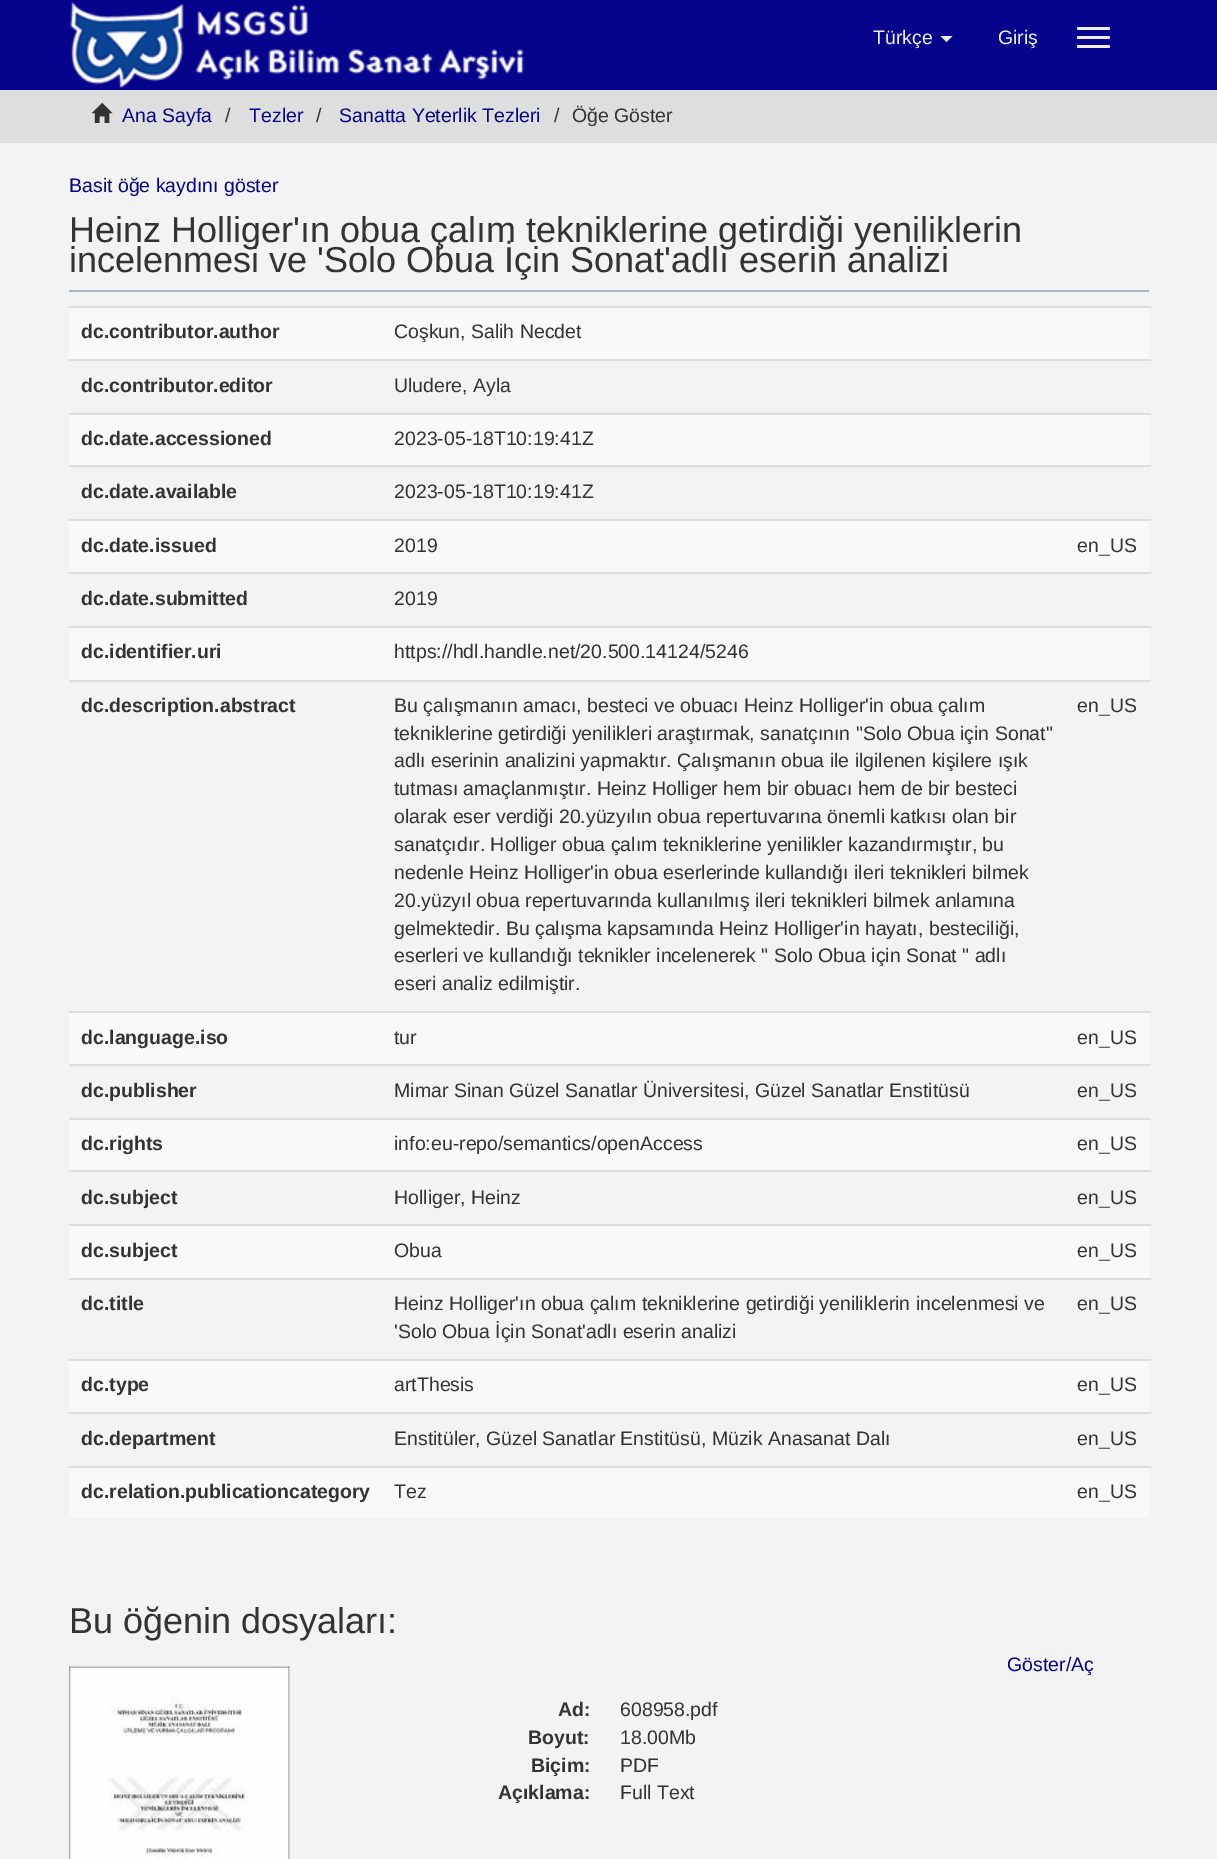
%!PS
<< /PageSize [1217 1859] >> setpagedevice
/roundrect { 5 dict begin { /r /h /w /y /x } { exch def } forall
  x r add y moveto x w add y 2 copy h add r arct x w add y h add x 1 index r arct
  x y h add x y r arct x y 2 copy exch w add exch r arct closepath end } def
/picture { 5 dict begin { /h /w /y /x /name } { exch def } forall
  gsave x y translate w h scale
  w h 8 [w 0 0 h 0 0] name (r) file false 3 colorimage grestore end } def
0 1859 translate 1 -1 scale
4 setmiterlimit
0.953 setgray
0 0 1217 1859 rectfill
0.024 0.012 0.553 setrgbcolor
0 0 1217 90 rectfill
(img1.rgb) 70 1 454 87 picture
/LiberationSans-Regular [19.5 0 0 -19.5 0 0] selectfont
0.933 setgray
873 44 moveto (Türkçe) show
newpath 940.5 36 moveto 952.5 36 lineto 946.5 42 lineto closepath fill
998 44 moveto (Giriş) show
1077 27 33 3 1.5 roundrect fill
1077 36 33 3 1.5 roundrect fill
1077 45 33 3 1.5 roundrect fill
0.871 setgray
0 90 1217 53 rectfill
(img2.rgb) 91 102 22 21 picture
0.024 0.012 0.553 setrgbcolor
122 122 moveto (Ana Sayfa) show
0.2 setgray
225 122 moveto (/) show
0.024 0.012 0.553 setrgbcolor
249 122 moveto (Tezler) show
0.2 setgray
316 122 moveto (/) show
0.024 0.012 0.553 setrgbcolor
339 122 moveto (Sanatta Yeterlik Tezleri) show
0.2 setgray
554 122 moveto (/) show
572 122 moveto (Öğe Göster) show
0.024 0.012 0.553 setrgbcolor
69 192 moveto (Basit öğe kaydını göster) show
0.667 0.722 0.776 setrgbcolor
69 290 1080 2 rectfill
/LiberationSans-Regular [36 0 0 -36 0 0] selectfont
0.2 setgray
69 242 moveto (Heinz Holliger'ın obua çalım tekniklerine getirdiği yeniliklerin) show
69 272 moveto (incelenmesi ve 'Solo Obua İçin Sonat'adlı eserin analizi) show
0.976 setgray
69 308 1080 51 rectfill
0.867 setgray
69 306 1082 2 rectfill
/LiberationSans-Bold [19.5 0 0 -19.5 0 0] selectfont
0.2 setgray
81 338 moveto (dc.contributor.author) show
/LiberationSans-Regular [19.5 0 0 -19.5 0 0] selectfont
394 338 moveto (Coşkun, Salih Necdet) show
0.867 setgray
69 359 1082 2 rectfill
/LiberationSans-Bold [19.5 0 0 -19.5 0 0] selectfont
0.2 setgray
81 392 moveto (dc.contributor.editor) show
/LiberationSans-Regular [19.5 0 0 -19.5 0 0] selectfont
394 392 moveto (Uludere, Ayla) show
0.976 setgray
69 415 1080 50 rectfill
0.867 setgray
69 413 1082 2 rectfill
/LiberationSans-Bold [19.5 0 0 -19.5 0 0] selectfont
0.2 setgray
81 445 moveto (dc.date.accessioned) show
/LiberationSans-Regular [19.5 0 0 -19.5 0 0] selectfont
394 445 moveto (2023-05-18T10:19:41Z) show
0.867 setgray
69 465 1082 2 rectfill
/LiberationSans-Bold [19.5 0 0 -19.5 0 0] selectfont
0.2 setgray
81 498 moveto (dc.date.available) show
/LiberationSans-Regular [19.5 0 0 -19.5 0 0] selectfont
394 498 moveto (2023-05-18T10:19:41Z) show
0.976 setgray
69 521 1080 51 rectfill
/LiberationSans-Bold [19.5 0 0 -19.5 0 0] selectfont
0.2 setgray
81 552 moveto (dc.date.issued) show
/LiberationSans-Regular [19.5 0 0 -19.5 0 0] selectfont
394 552 moveto (2019) show
0.867 setgray
69 519 1082 2 rectfill
0.2 setgray
1077 552 moveto (en_US) show
0.867 setgray
69 572 1082 2 rectfill
/LiberationSans-Bold [19.5 0 0 -19.5 0 0] selectfont
0.2 setgray
81 605 moveto (dc.date.submitted) show
/LiberationSans-Regular [19.5 0 0 -19.5 0 0] selectfont
394 605 moveto (2019) show
0.976 setgray
69 628 1080 52 rectfill
0.867 setgray
69 626 1082 2 rectfill
/LiberationSans-Bold [19.5 0 0 -19.5 0 0] selectfont
0.2 setgray
81 658 moveto (dc.identifier.uri) show
/LiberationSans-Regular [19.5 0 0 -19.5 0 0] selectfont
394 658 moveto (https://hdl.handle.net/20.500.14124/5246) show
/LiberationSans-Bold [19.5 0 0 -19.5 0 0] selectfont
81 712 moveto (dc.description.abstract) show
/LiberationSans-Regular [19.5 0 0 -19.5 0 0] selectfont
394 712 moveto (Bu çalışmanın amacı, besteci ve obuacı Heinz Holliger'in obua çalım) show
394 740 moveto (tekniklerine getirdiği yenilikleri araştırmak, sanatçının "Solo Obua için Sonat") show
394 767 moveto (adlı eserinin analizini yapmaktır. Çalışmanın obua ile ilgilenen kişilere ışık) show
394 795 moveto (tutması amaçlanmıştır. Heinz Holliger hem bir obuacı hem de bir besteci) show
394 823 moveto (olarak eser verdiği 20.yüzyılın obua repertuvarına önemli katkısı olan bir) show
394 851 moveto (sanatçıdır. Holliger obua çalım tekniklerine yenilikler kazandırmıştır, bu) show
394 879 moveto (nedenle Heinz Holliger'in obua eserlerinde kullandığı ileri teknikleri bilmek) show
394 907 moveto (20.yüzyıl obua repertuvarında kullanılmış ileri teknikleri bilmek anlamına) show
394 935 moveto (gelmektedir. Bu çalışma kapsamında Heinz Holliger'in hayatı, besteciliği,) show
394 962 moveto (eserleri ve kullandığı teknikler incelenerek " Solo Obua için Sonat " adlı) show
394 990 moveto (eseri analiz edilmiştir.) show
0.867 setgray
69 680 1082 2 rectfill
0.2 setgray
1077 712 moveto (en_US) show
0.976 setgray
69 1013 1080 51 rectfill
/LiberationSans-Bold [19.5 0 0 -19.5 0 0] selectfont
0.2 setgray
81 1044 moveto (dc.language.iso) show
/LiberationSans-Regular [19.5 0 0 -19.5 0 0] selectfont
394 1044 moveto (tur) show
0.867 setgray
69 1011 1082 2 rectfill
0.2 setgray
1077 1044 moveto (en_US) show
/LiberationSans-Bold [19.5 0 0 -19.5 0 0] selectfont
81 1097 moveto (dc.publisher) show
/LiberationSans-Regular [19.5 0 0 -19.5 0 0] selectfont
394 1097 moveto (Mimar Sinan Güzel Sanatlar Üniversitesi, Güzel Sanatlar Enstitüsü) show
0.867 setgray
69 1064 1082 2 rectfill
0.2 setgray
1077 1097 moveto (en_US) show
0.976 setgray
69 1120 1080 50 rectfill
/LiberationSans-Bold [19.5 0 0 -19.5 0 0] selectfont
0.2 setgray
81 1150 moveto (dc.rights) show
/LiberationSans-Regular [19.5 0 0 -19.5 0 0] selectfont
394 1150 moveto (info:eu-repo/semantics/openAccess) show
0.867 setgray
69 1118 1082 2 rectfill
0.2 setgray
1077 1150 moveto (en_US) show
/LiberationSans-Bold [19.5 0 0 -19.5 0 0] selectfont
81 1204 moveto (dc.subject) show
/LiberationSans-Regular [19.5 0 0 -19.5 0 0] selectfont
394 1204 moveto (Holliger, Heinz) show
0.867 setgray
69 1170 1082 2 rectfill
0.2 setgray
1077 1204 moveto (en_US) show
0.976 setgray
69 1226 1080 52 rectfill
/LiberationSans-Bold [19.5 0 0 -19.5 0 0] selectfont
0.2 setgray
81 1257 moveto (dc.subject) show
/LiberationSans-Regular [19.5 0 0 -19.5 0 0] selectfont
394 1257 moveto (Obua) show
0.867 setgray
69 1224 1082 2 rectfill
0.2 setgray
1077 1257 moveto (en_US) show
/LiberationSans-Bold [19.5 0 0 -19.5 0 0] selectfont
81 1310 moveto (dc.title) show
/LiberationSans-Regular [19.5 0 0 -19.5 0 0] selectfont
394 1310 moveto (Heinz Holliger'ın obua çalım tekniklerine getirdiği yeniliklerin incelenmesi ve) show
394 1338 moveto ('Solo Obua İçin Sonat'adlı eserin analizi) show
0.867 setgray
69 1278 1082 2 rectfill
0.2 setgray
1077 1310 moveto (en_US) show
0.976 setgray
69 1361 1080 51 rectfill
/LiberationSans-Bold [19.5 0 0 -19.5 0 0] selectfont
0.2 setgray
81 1391 moveto (dc.type) show
/LiberationSans-Regular [19.5 0 0 -19.5 0 0] selectfont
394 1391 moveto (artThesis) show
0.867 setgray
69 1359 1082 2 rectfill
0.2 setgray
1077 1391 moveto (en_US) show
/LiberationSans-Bold [19.5 0 0 -19.5 0 0] selectfont
81 1445 moveto (dc.department) show
/LiberationSans-Regular [19.5 0 0 -19.5 0 0] selectfont
394 1445 moveto (Enstitüler, Güzel Sanatlar Enstitüsü, Müzik Anasanat Dalı) show
0.867 setgray
69 1412 1082 2 rectfill
0.2 setgray
1077 1445 moveto (en_US) show
0.976 setgray
69 1468 1080 50 rectfill
/LiberationSans-Bold [19.5 0 0 -19.5 0 0] selectfont
0.2 setgray
81 1498 moveto (dc.relation.publicationcategory) show
/LiberationSans-Regular [19.5 0 0 -19.5 0 0] selectfont
394 1498 moveto (Tez) show
0.867 setgray
69 1466 1082 2 rectfill
0.2 setgray
1077 1498 moveto (en_US) show
/LiberationSans-Regular [36 0 0 -36 0 0] selectfont
69 1633 moveto (Bu öğenin dosyaları:) show
(img3.rgb) 69 1666 221 193 picture
/LiberationSans-Bold [19.5 0 0 -19.5 0 0] selectfont
558 1716 moveto (Ad:) show
/LiberationSans-Regular [19.5 0 0 -19.5 0 0] selectfont
620 1716 moveto (608958.pdf) show
/LiberationSans-Bold [19.5 0 0 -19.5 0 0] selectfont
528 1744 moveto (Boyut:) show
/LiberationSans-Regular [19.5 0 0 -19.5 0 0] selectfont
620 1744 moveto (18.00Mb) show
/LiberationSans-Bold [19.5 0 0 -19.5 0 0] selectfont
531 1772 moveto (Biçim:) show
/LiberationSans-Regular [19.5 0 0 -19.5 0 0] selectfont
620 1772 moveto (PDF) show
/LiberationSans-Bold [19.5 0 0 -19.5 0 0] selectfont
498 1799 moveto (Açıklama:) show
/LiberationSans-Regular [19.5 0 0 -19.5 0 0] selectfont
620 1799 moveto (Full Text) show
0.024 0.012 0.553 setrgbcolor
1007 1671 moveto (Göster/Aç) show
showpage
